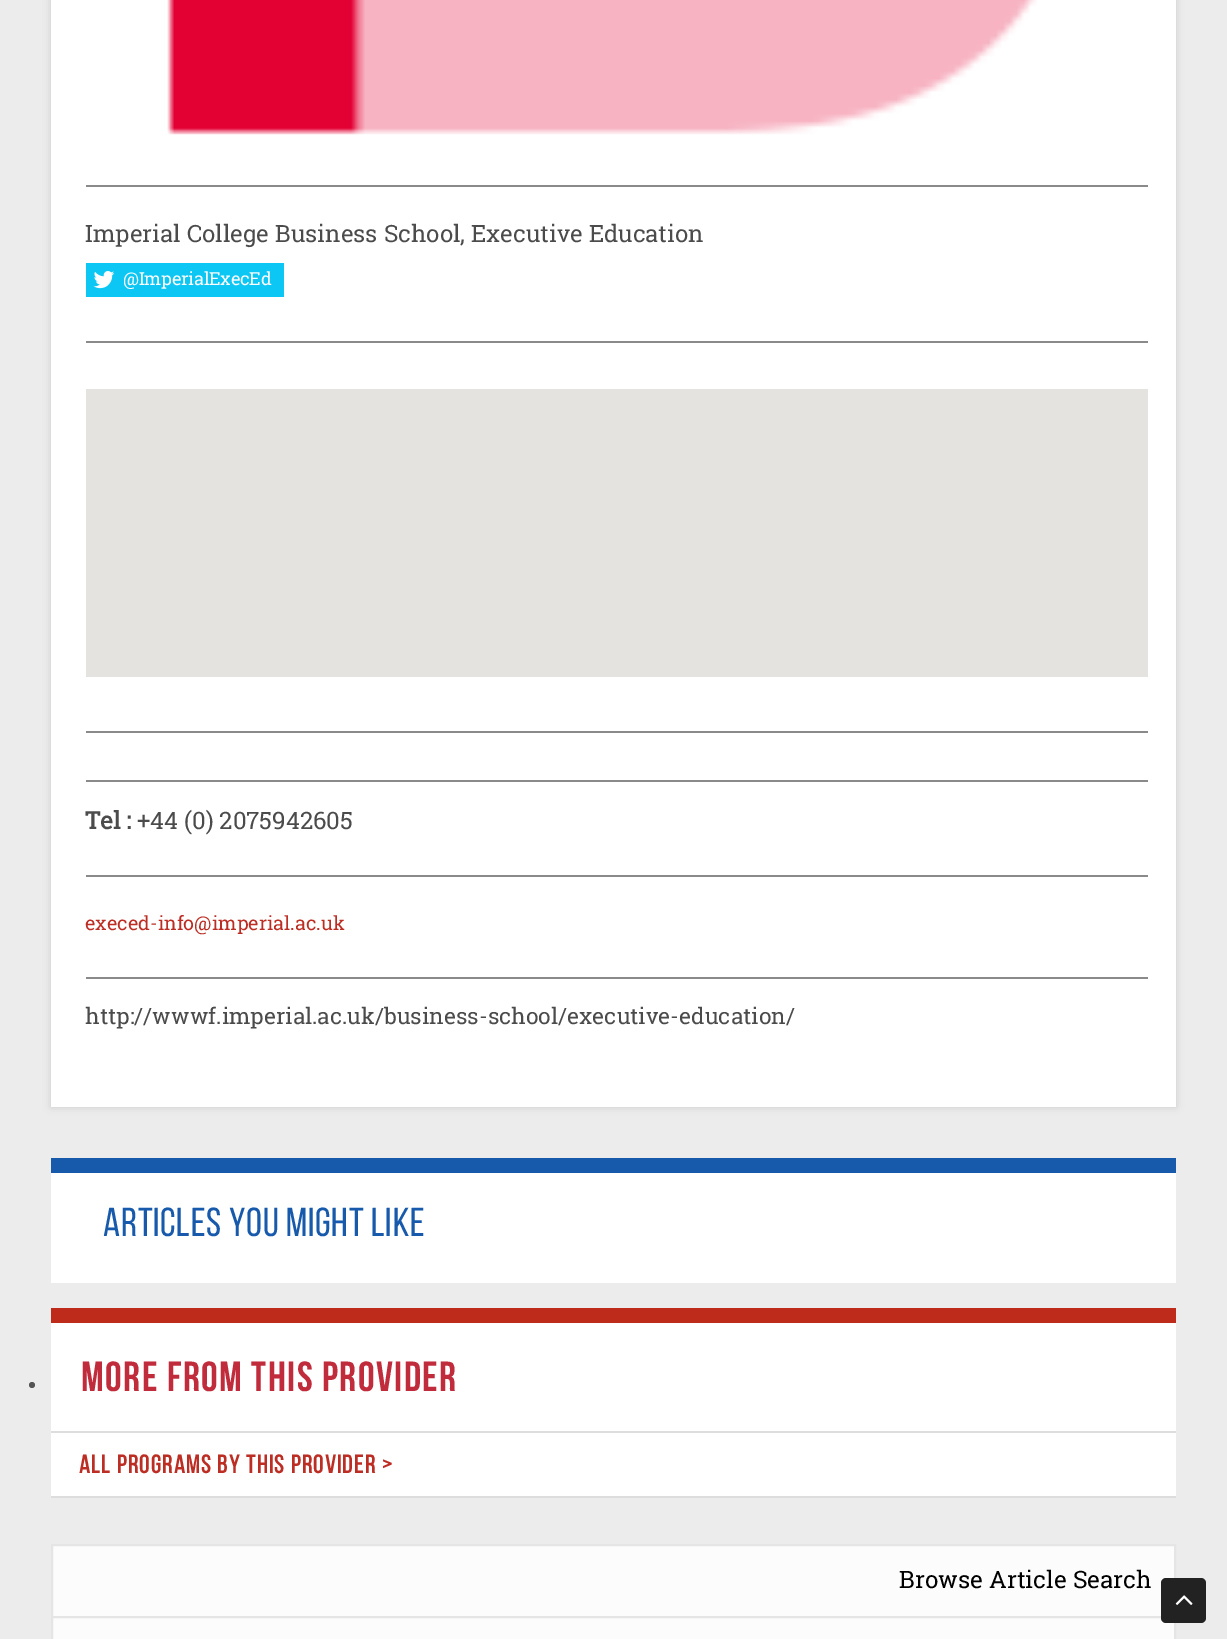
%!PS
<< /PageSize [1227 1639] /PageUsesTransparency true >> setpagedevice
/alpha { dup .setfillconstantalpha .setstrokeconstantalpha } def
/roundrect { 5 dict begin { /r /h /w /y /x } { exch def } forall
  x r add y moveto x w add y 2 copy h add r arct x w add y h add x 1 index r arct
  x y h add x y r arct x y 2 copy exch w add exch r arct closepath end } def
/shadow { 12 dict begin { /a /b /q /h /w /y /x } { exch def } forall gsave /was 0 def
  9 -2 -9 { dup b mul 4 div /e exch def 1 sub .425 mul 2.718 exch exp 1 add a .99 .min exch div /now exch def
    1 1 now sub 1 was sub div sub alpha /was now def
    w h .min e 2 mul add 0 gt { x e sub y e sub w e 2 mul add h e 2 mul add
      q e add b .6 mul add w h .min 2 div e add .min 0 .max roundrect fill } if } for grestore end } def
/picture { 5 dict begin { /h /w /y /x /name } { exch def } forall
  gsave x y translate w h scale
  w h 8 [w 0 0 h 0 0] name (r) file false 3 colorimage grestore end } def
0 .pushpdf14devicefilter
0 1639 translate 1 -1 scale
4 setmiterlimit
0.925 setgray
0 0 1227 1639 rectfill
0.8 setgray
51 -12 1125 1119 0 4 1 shadow
1 setgray
51 0 1125 1107 rectfill
(img1.rgb) 167 0 870 135 picture
0.541 setgray
86 185 1062 2 rectfill
/RobotoSlab-Regular [23.8 0 0 -23.8 0 0] selectfont
0.294 0.294 0.298 setrgbcolor
85 242 moveto (Imperial College Business School, Executive Education) show
0.047 0.776 0.957 setrgbcolor
86 263 198 34 rectfill
(img2.rgb) 93 271 22 18 picture
/RobotoSlab-Regular [18 0 0 -18 0 0] selectfont
1 setgray
123 285 moveto -0.25 0 (@ImperialExecEd) ashow
0.541 setgray
86 341 1062 2 rectfill
0.898 0.89 0.875 setrgbcolor
86 389 1062 288 rectfill
0.541 setgray
86 731 1062 2 rectfill
86 780 1062 2 rectfill
/RobotoSlab-Bold [24 0 0 -24 0 0] selectfont
0.294 0.294 0.298 setrgbcolor
85 829 moveto (Tel :) show
/RobotoSlab-Regular [24 0 0 -24 0 0] selectfont
137 829 moveto (+44 \(0\) 2075942605) show
0.541 setgray
86 875 1062 2 rectfill
/RobotoSlab-Regular [19.5 0 0 -19.5 0 0] selectfont
0.737 0.176 0.137 setrgbcolor
85 930 moveto (execed-info@imperial.ac.uk) show
0.541 setgray
86 977 1062 2 rectfill
/RobotoSlab-Regular [22.5 0 0 -22.5 0 0] selectfont
0.294 0.294 0.298 setrgbcolor
85 1024 moveto (http://wwwf.imperial.ac.uk/business-school/executive-education/) show
0.09 0.353 0.675 setrgbcolor
51 1158 1125 15 rectfill
1 setgray
51 1173 1125 110 rectfill
/BebasNeue-Regular [40.5 0 0 -40.5 0 0] selectfont
0.09 0.353 0.675 setrgbcolor
103 1236 moveto 0.75 0 (ARTICLES YOU MIGHT LIKE) ashow
0.333 setgray
newpath 32 1385 3 0 360 arc closepath fill
1 setgray
51 1323 1125 108 rectfill
0.745 0.169 0.106 setrgbcolor
51 1308 1125 15 rectfill
/BebasNeue-Bold [42 0 0 -42 0 0] selectfont
0.753 0.173 0.235 setrgbcolor
81 1391 moveto 1.5 0 (MORE FROM THIS PROVIDER) ashow
1 setgray
51 1433 1125 63 rectfill
0.867 setgray
51 1431 1125 2 rectfill
51 1496 1125 2 rectfill
/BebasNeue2-Bold [25.5 0 0 -25.5 0 0] selectfont
0.737 0.176 0.137 setrgbcolor
79 1473 moveto 1.5 0 (ALL PROGRAMS BY THIS PROVIDER >) ashow
0.988 setgray
53 1546 1121 70 rectfill
0.898 setgray
2 setlinewidth
52 1545 1123 73 rectstroke
/RobotoSlab-Regular [24 0 0 -24 0 0] selectfont
0 setgray
899 1588 moveto (Browse Article Search) show
0.988 setgray
newpath 52 1617 moveto 1175 1617 lineto 1175 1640 lineto 52 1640 lineto closepath gsave fill grestore
0.898 setgray
stroke
0.133 setgray
1161 1578 45 45 5 roundrect fill
(img3.rgb) 1175 1595 18 10 picture
.poppdf14devicefilter showpage
